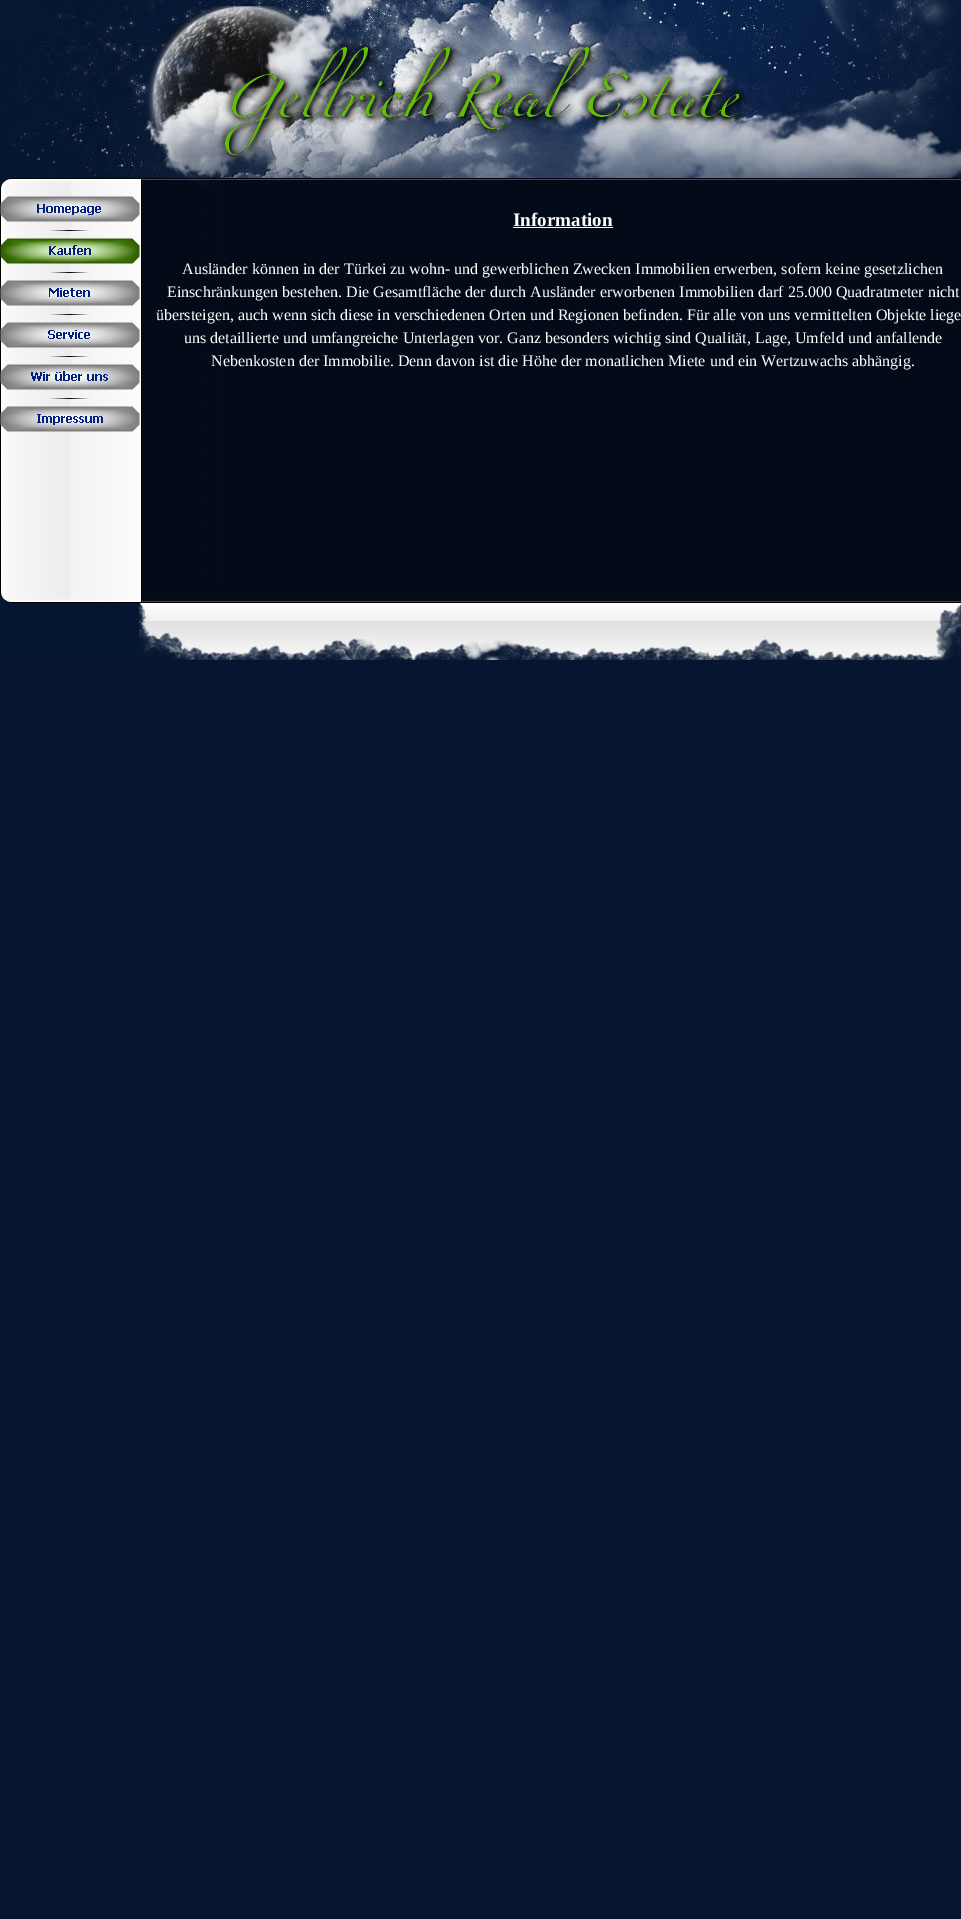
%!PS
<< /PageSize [961 1919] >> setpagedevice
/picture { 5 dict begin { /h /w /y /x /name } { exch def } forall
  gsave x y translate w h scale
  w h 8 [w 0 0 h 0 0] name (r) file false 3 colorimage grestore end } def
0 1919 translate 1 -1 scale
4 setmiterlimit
0.024 0.086 0.188 setrgbcolor
0 0 961 1919 rectfill
(img1.rgb) 0 0 961 196 picture
(img2.rgb) 0 196 130 390 picture
(img10.rgb) 130 196 831 390 picture
(img3.rgb) 0 196 140 26 picture
(img4.rgb) 50 230 39 1 picture
(img5.rgb) 0 238 140 26 picture
(img4.rgb) 50 272 39 1 picture
(img6.rgb) 0 280 140 26 picture
(img4.rgb) 50 314 39 1 picture
(img7.rgb) 0 322 140 26 picture
(img4.rgb) 50 356 39 1 picture
(img8.rgb) 0 364 140 26 picture
(img4.rgb) 50 398 39 1 picture
(img9.rgb) 0 406 140 26 picture
/LiberationSerif-Bold [19 0 0 -19 0 0] selectfont
1 setgray
513 226 moveto (Information) show
513 227 100 1 rectfill
/LiberationSerif-Regular [16 0 0 -16 0 0] selectfont
182 274 moveto (Ausländer können in der Türkei zu wohn- und gewerblichen Zwecken Immobilien erwerben, sofern keine gesetzlichen) show
167 297 moveto (Einschränkungen bestehen. Die Gesamtfläche der durch Ausländer erworbenen Immobilien darf 25.000 Quadratmeter nicht) show
156 320 moveto (übersteigen, auch wenn sich diese in verschiedenen Orten und Regionen befinden. Für alle von uns vermittelten Objekte liege) show
184 343 moveto (uns detaillierte und umfangreiche Unterlagen vor. Ganz besonders wichtig sind Qualität, Lage, Umfeld und anfallende) show
211 366 moveto (Nebenkosten der Immobilie. Denn davon ist die Höhe der monatlichen Miete und ein Wertzuwachs abhängig.) show
(img11.rgb) 0 586 961 74 picture
showpage
